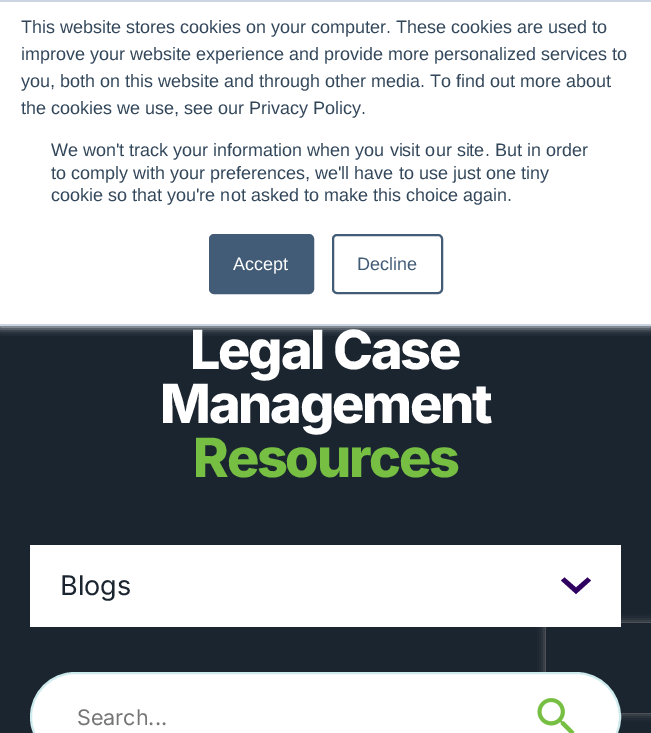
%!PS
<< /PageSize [651 733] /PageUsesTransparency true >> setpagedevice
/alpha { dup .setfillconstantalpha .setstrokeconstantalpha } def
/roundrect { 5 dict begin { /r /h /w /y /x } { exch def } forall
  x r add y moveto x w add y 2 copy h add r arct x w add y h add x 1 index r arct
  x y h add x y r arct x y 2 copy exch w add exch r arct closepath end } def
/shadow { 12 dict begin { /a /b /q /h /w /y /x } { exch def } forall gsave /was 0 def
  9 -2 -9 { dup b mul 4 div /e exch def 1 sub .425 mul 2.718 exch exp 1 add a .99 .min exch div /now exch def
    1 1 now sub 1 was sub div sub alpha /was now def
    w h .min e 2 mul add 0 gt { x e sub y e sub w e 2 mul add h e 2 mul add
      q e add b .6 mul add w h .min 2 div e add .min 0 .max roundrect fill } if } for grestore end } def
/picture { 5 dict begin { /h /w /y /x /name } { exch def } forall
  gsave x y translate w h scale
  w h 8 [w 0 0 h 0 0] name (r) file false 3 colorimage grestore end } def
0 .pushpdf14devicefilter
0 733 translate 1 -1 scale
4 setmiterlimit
0.106 0.145 0.188 setrgbcolor
0 0 651 733 rectfill
0.918 0.941 0.965 setrgbcolor
0 2 651 325 0 4 1 shadow
1 setgray
0 2 651 322 rectfill
0.796 0.839 0.886 setrgbcolor
0 0 651 2 rectfill
0 324 651 2 rectfill
/LiberationSans-Regular [18 0 0 -18 0 0] selectfont
0.2 0.278 0.357 setrgbcolor
21 33 moveto (This website stores cookies on your computer. These cookies are used to) show
21 60 moveto (improve your website experience and provide more personalized services to) show
21 87 moveto (you, both on this website and through other media. To find out more about) show
21 114 moveto (the cookies we use, see our Privacy Policy.) show
51 156 moveto (We won't track your information when you visit our site. But in order) show
51 179 moveto (to comply with your preferences, we'll have to use just one tiny) show
51 201 moveto (cookie so that you're not asked to make this choice again.) show
0.259 0.357 0.463 setrgbcolor
210 235 103 58 4 roundrect gsave fill grestore
2 setlinewidth
stroke
1 setgray
233 270 moveto (Accept) show
0.259 0.357 0.463 setrgbcolor
333 235 109 58 4 roundrect stroke
357 270 moveto (Decline) show
/Inter-ExtraBold [54 0 0 -54 0 0] selectfont
1 setgray
190 369 moveto -2.25 0 (Legal Case) ashow
160 423 moveto -2.25 0 (Management) ashow
0.463 0.749 0.263 setrgbcolor
193 477 moveto -2.25 0 (Resources) ashow
gsave
newpath 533 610 moveto 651 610 lineto 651 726 lineto 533 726 lineto closepath 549 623 moveto 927 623 lineto 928.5 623 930 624.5 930 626 curveto 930 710 lineto 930 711.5 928.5 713 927 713 curveto 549 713 lineto 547.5 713 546 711.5 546 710 curveto 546 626 lineto 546 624.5 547.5 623 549 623 curveto closepath eoclip newpath
0.502 setgray
546 623 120 90 3 4 1 shadow
grestore
1 setgray
30 545 591 82 rectfill
0.188 0 0.376 setrgbcolor
newpath 564.5 577.5 moveto 576 587.5 lineto 587.5 577.5 lineto 591 580.5 lineto 576 594 lineto 561 580.5 lineto closepath fill
/Inter-Regular [27 0 0 -27 0 0] selectfont
0.106 0.145 0.188 setrgbcolor
60 595 moveto (Blogs) show
1 setgray
31 673 589 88 44 roundrect gsave fill grestore
0.804 0.918 0.925 setrgbcolor
stroke
/Inter-Regular [21.5 0 0 -21.5 0 0] selectfont
0.459 setgray
77 725 moveto (Search...) show
(img1.rgb) 537 698 38 35 picture
.poppdf14devicefilter showpage
